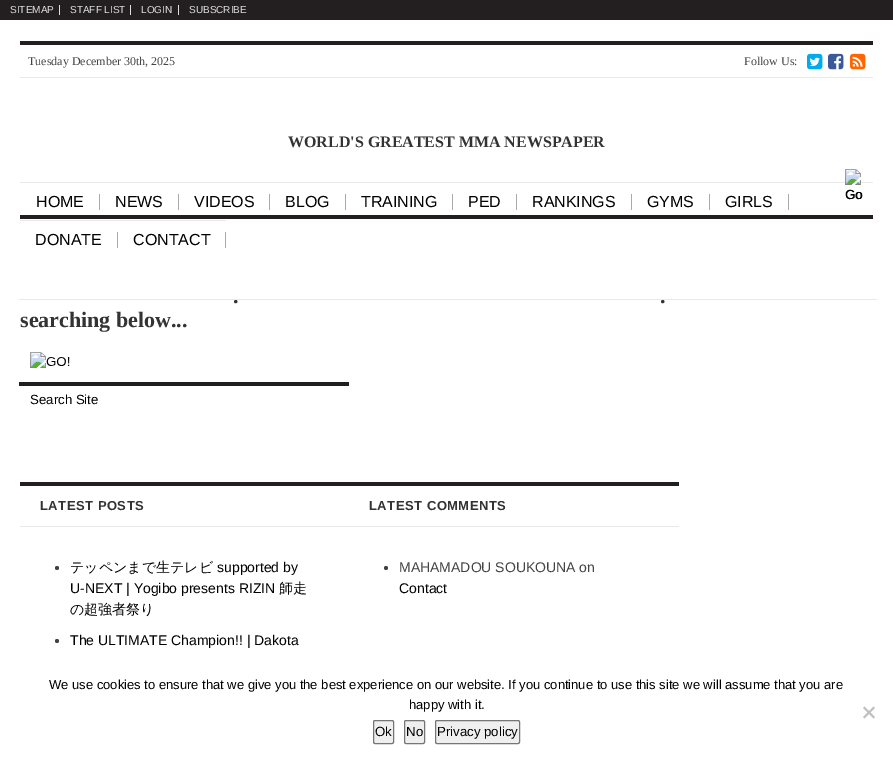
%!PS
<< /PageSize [893 764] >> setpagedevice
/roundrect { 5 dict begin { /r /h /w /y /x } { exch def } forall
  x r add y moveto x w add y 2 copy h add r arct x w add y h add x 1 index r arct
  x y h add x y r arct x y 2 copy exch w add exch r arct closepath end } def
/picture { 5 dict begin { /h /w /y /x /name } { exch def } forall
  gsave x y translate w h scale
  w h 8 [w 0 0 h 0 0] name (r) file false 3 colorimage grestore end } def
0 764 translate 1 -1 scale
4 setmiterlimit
0.137 0.122 0.125 setrgbcolor
0 0 893 764 rectfill
1 setgray
0 20 893 744 rectfill
/LiberationSans-Regular [10 0 0 -10 0 0] selectfont
0.875 setgray
10 13 moveto (SITEMAP) show
59 5 1 10 rectfill
70 13 moveto (STAFF LIST) show
130 5 1 10 rectfill
141 13 moveto (LOGIN) show
178 5 1 10 rectfill
189 13 moveto (SUBSCRIBE) show
0.137 0.122 0.125 setrgbcolor
20 41 853 4 rectfill
20 215 853 4 rectfill
0.914 setgray
20 77 853 1 rectfill
/LiberationSerif-Regular [12 0 0 -12 0 0] selectfont
0.267 setgray
28 65 moveto (Tuesday December 30th, 2025) show
744 65 moveto (Follow Us:) show
(img1.rgb) 807 53 16 17 picture
(img2.rgb) 828 53 16 17 picture
(img3.rgb) 850 53 16 17 picture
0.914 setgray
20 182 853 1 rectfill
/LiberationSerif-Bold [16 0 0 -16 0 0] selectfont
0.2 setgray
288 147 moveto (WORLD'S GREATEST MMA NEWSPAPER) show
0.667 setgray
99 194 1 16 rectfill
/LiberationSans-Regular [16 0 0 -16 0 0] selectfont
0 setgray
36 207 moveto (HOME) show
0.667 setgray
178 194 1 16 rectfill
0 setgray
115 207 moveto (NEWS) show
0.667 setgray
269 194 1 16 rectfill
0 setgray
194 207 moveto (VIDEOS) show
0.667 setgray
345 194 1 16 rectfill
0 setgray
285 207 moveto (BLOG) show
0.667 setgray
452 194 1 16 rectfill
0 setgray
361 207 moveto (TRAINING) show
0.667 setgray
516 194 1 16 rectfill
0 setgray
468 207 moveto (PED) show
0.667 setgray
631 194 1 16 rectfill
0 setgray
532 207 moveto (RANKINGS) show
0.667 setgray
709 194 1 16 rectfill
0 setgray
647 207 moveto (GYMS) show
0.667 setgray
788 194 1 16 rectfill
0 setgray
725 207 moveto (GIRLS) show
0.914 setgray
20 220 206 1 rectfill
0.667 setgray
117 232 1 16 rectfill
0 setgray
35 245 moveto (DONATE) show
0.667 setgray
225 232 1 16 rectfill
0 setgray
133 245 moveto (CONTACT) show
(img4.rgb) 845 169 18 30 picture
/LiberationSans-Regular [13.25 0 0 -13.25 0 0] selectfont
845 199 moveto (Go) show
/LiberationSerif-Bold [22 0 0 -22 0 0] selectfont
0.2 setgray
233 303 moveto (.) show
660 303 moveto (.) show
0.914 setgray
19 299 858 1 rectfill
0.2 setgray
20 327 moveto (searching below...) show
(img5.rgb) 30 352 40 16 picture
/LiberationSans-Regular [13.25 0 0 -13.25 0 0] selectfont
0 setgray
30 404 moveto (Search Site) show
0.137 0.122 0.125 setrgbcolor
19 382 330 4 rectfill
20 482 659 4 rectfill
0.914 setgray
20 526 659 1 rectfill
/LiberationSans-Bold [13 0 0 -13 0 0] selectfont
0.2 setgray
40 510 moveto 0.5 0 (LATEST POSTS) ashow
0.267 setgray
newpath 57 568 2 0 360 arc closepath fill
/WenQuanYiZenHei-Medium [14 0 0 -14 0 0] selectfont
0 setgray
70 572 moveto (テッペンまで生テレビ) show
/LiberationSans-Regular [14 0 0 -14 0 0] selectfont
217 572 moveto (supported by) show
70 593 moveto (U-NEXT | Yogibo presents RIZIN) show
/WenQuanYiZenHei-Medium [14 0 0 -14 0 0] selectfont
279 593 moveto (師走) show
70 614 moveto (の超強者祭り) show
0.267 setgray
newpath 57 641 2 0 360 arc closepath fill
/LiberationSans-Regular [14 0 0 -14 0 0] selectfont
0 setgray
70 645 moveto (The ULTIMATE Champion!! | Dakota) show
/LiberationSans-Bold [13 0 0 -13 0 0] selectfont
0.2 setgray
369 510 moveto 0.5 0 (LATEST COMMENTS) ashow
0.267 setgray
newpath 386 568 2 0 360 arc closepath fill
/LiberationSans-Regular [14 0 0 -14 0 0] selectfont
399 572 moveto (MAHAMADOU SOUKOUNA on) show
0 setgray
399 593 moveto (Contact) show
/LiberationSans-Regular [13 0 0 -13 0 0] selectfont
49 689 moveto (We use cookies to ensure that we give you the best experience on our website. If you continue to use this site we will assume that you are) show
409 709 moveto (happy with it.) show
0.753 setgray
newpath 873.5 706.5 moveto 875 708 lineto 864.5 718.5 lineto 863 717 lineto closepath fill
newpath 863 708 moveto 864.5 706.5 lineto 875 717 lineto 873.5 718.5 lineto closepath fill
0.937 setgray
373.5 720.5 20 23 1.5 roundrect gsave fill grestore
0.463 setgray
stroke
/LiberationSans-Regular [13.25 0 0 -13.25 0 0] selectfont
0 setgray
375 736 moveto (Ok) show
0.937 setgray
404.5 720.5 20 23 1.5 roundrect gsave fill grestore
0.463 setgray
stroke
0 setgray
406 736 moveto (No) show
0.937 setgray
435.5 720.5 84 23 1.5 roundrect gsave fill grestore
0.463 setgray
stroke
0 setgray
437 736 moveto (Privacy policy) show
showpage
